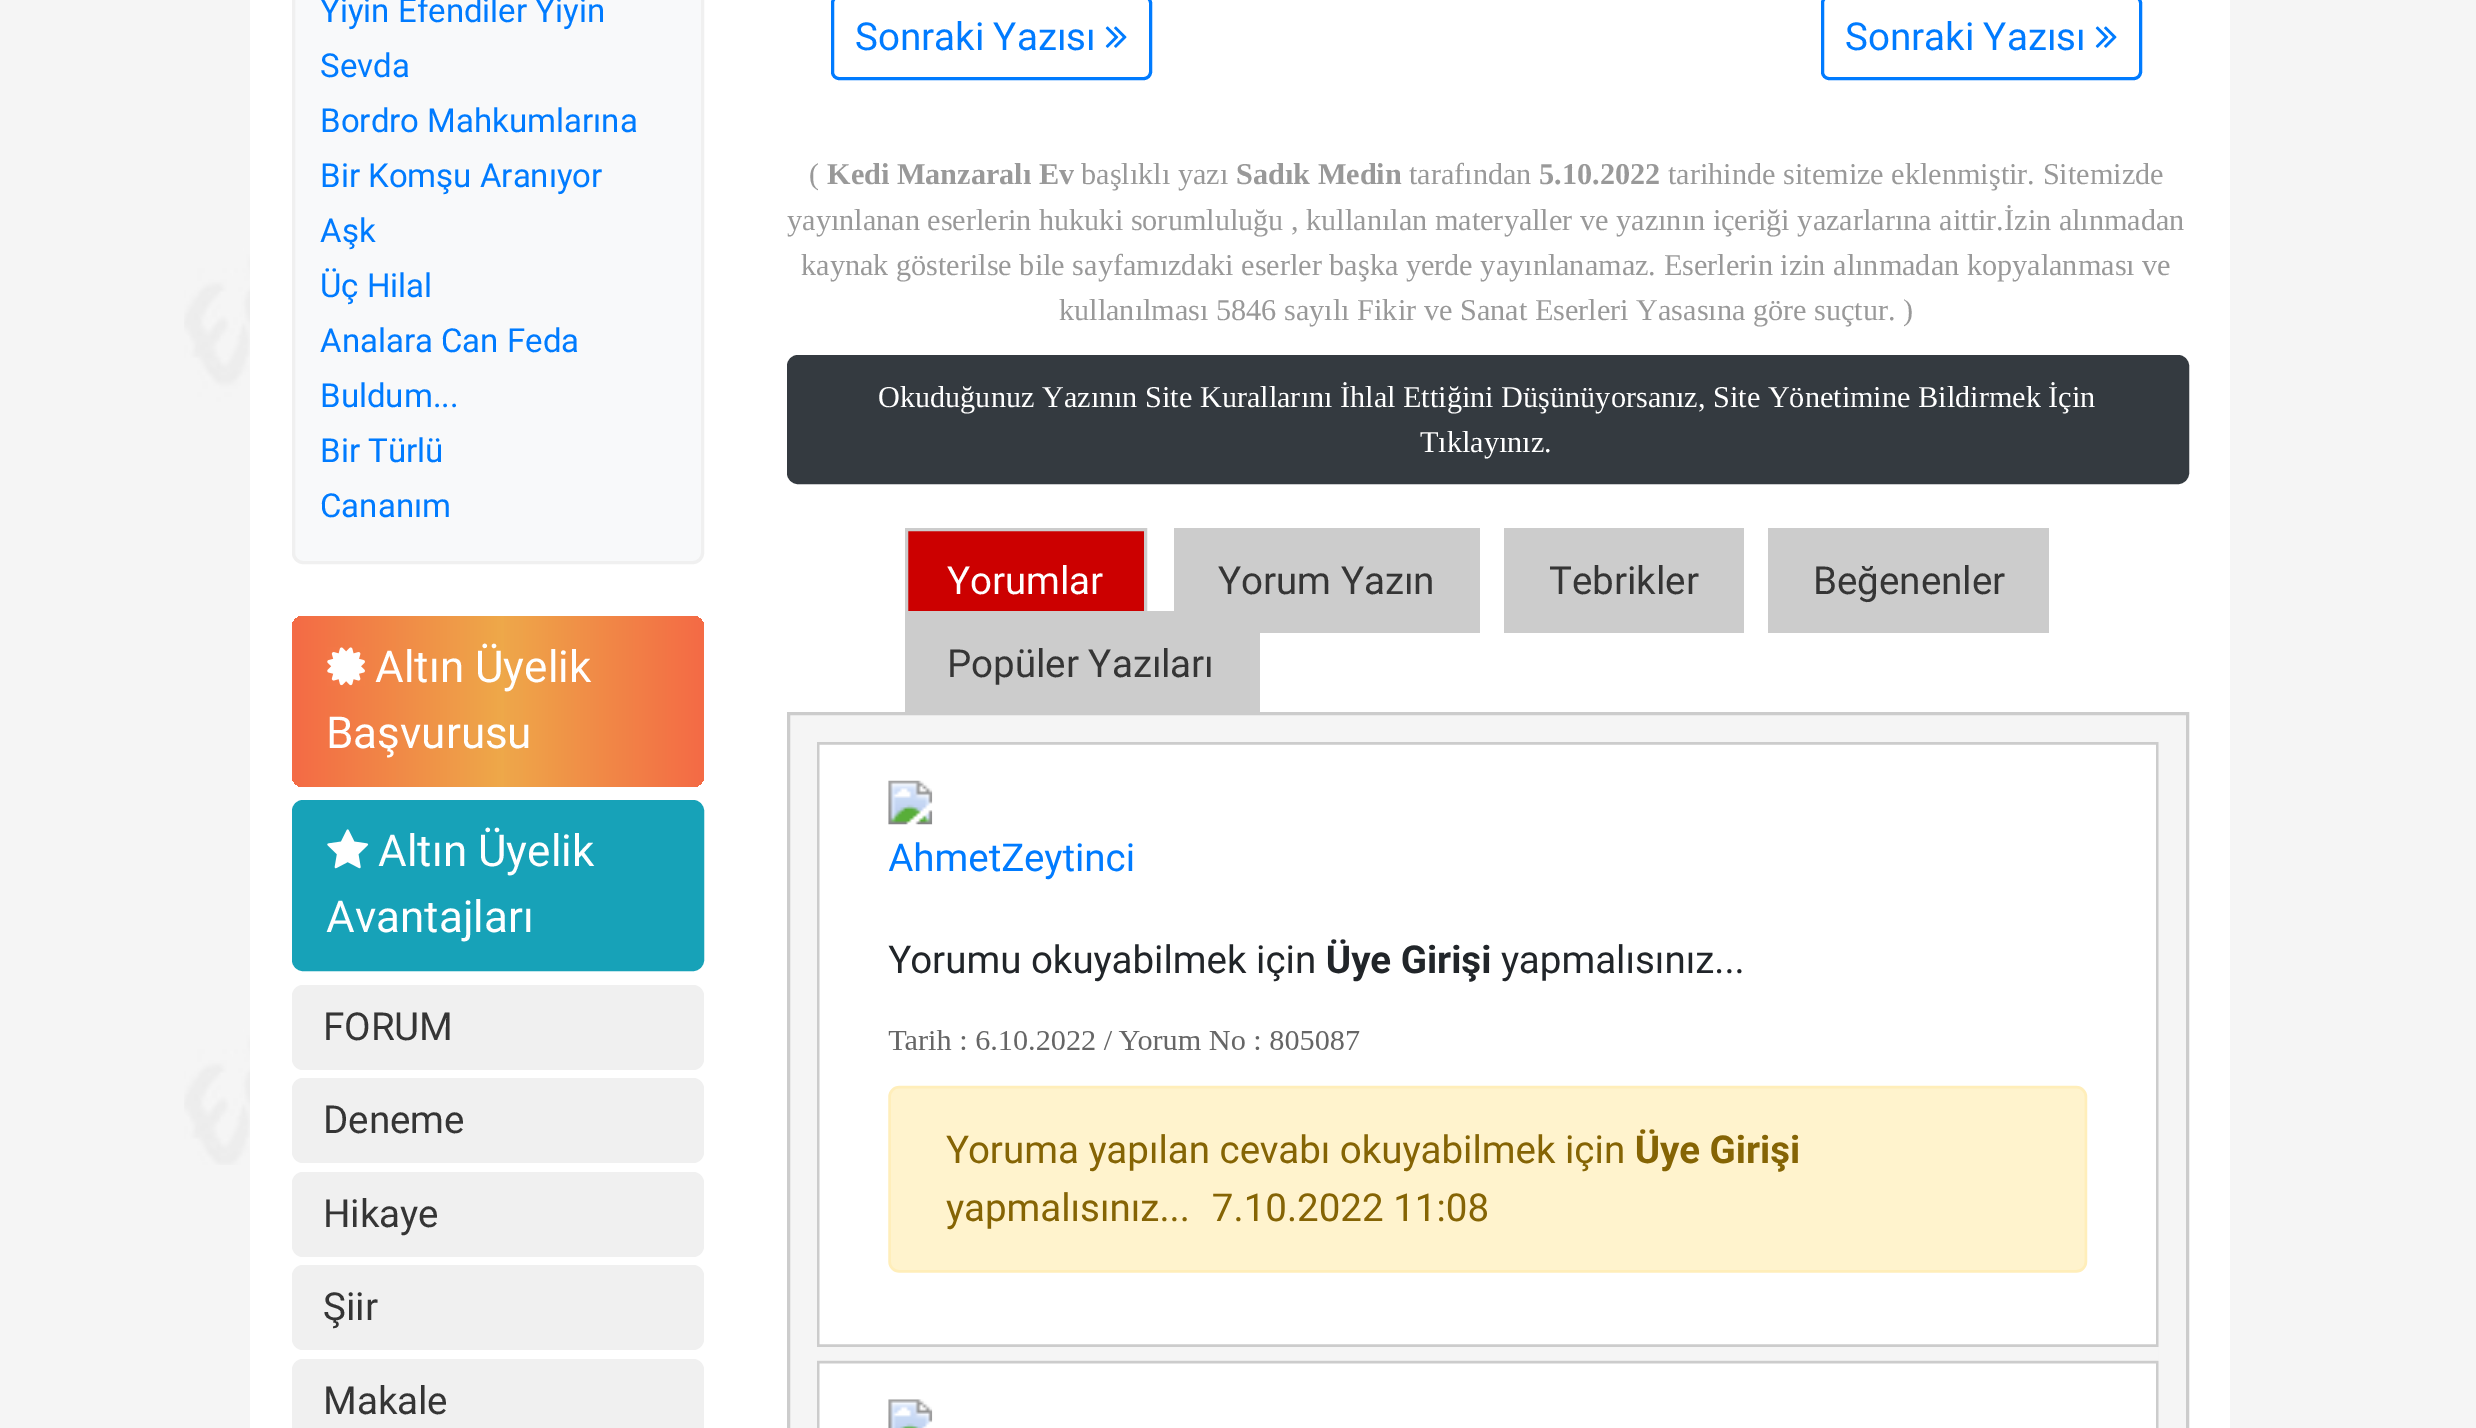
%!PS
<< /PageSize [2476 1428] >> setpagedevice
/roundrect { 5 dict begin { /r /h /w /y /x } { exch def } forall
  x r add y moveto x w add y 2 copy h add r arct x w add y h add x 1 index r arct
  x y h add x y r arct x y 2 copy exch w add exch r arct closepath end } def
/picture { 5 dict begin { /h /w /y /x /name } { exch def } forall
  gsave x y translate w h scale
  w h 8 [w 0 0 h 0 0] name (r) file false 3 colorimage grestore end } def
0 1428 translate 1 -1 scale
4 setmiterlimit
0.961 setgray
0 0 2476 1428 rectfill
(img1.rgb) 184 10 66 1155 picture
1 setgray
250 0 1980 1428 rectfill
0.973 0.976 0.98 setrgbcolor
293.5 -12.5 409 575 9.5 roundrect gsave fill grestore
0.941 setgray
3 setlinewidth
stroke
/Roboto-Regular [33 0 0 -33 0 0] selectfont
0 0.482 1 setrgbcolor
320 22 moveto (Yiyin Efendiler Yiyin) show
320 77 moveto (Sevda) show
320 132 moveto (Bordro Mahkumlarına) show
320 187 moveto (Bir Komşu Aranıyor) show
320 242 moveto (Aşk) show
320 297 moveto (Üç Hilal) show
320 352 moveto (Analara Can Feda) show
320 407 moveto (Buldum...) show
320 462 moveto (Bir Türlü) show
320 517 moveto (Cananım) show
gsave
292 616 412 171 11 roundrect clip newpath
gsave newpath 292 616 moveto 294 616 lineto 294 787 lineto 292 787 lineto closepath clip newpath
<< /ShadingType 2 /ColorSpace /DeviceRGB /Coords [-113 701 294 701] /Extend [true true] /Function << /FunctionType 3 /Domain [0 1] /Functions [<< /FunctionType 2 /Domain [0 1] /C0 [0.957 0.42 0.271] /C1 [0.933 0.659 0.286] /N 1 >> << /FunctionType 2 /Domain [0 1] /C0 [0.933 0.659 0.286] /C1 [0.957 0.42 0.271] /N 1 >>] /Bounds [0.51] /Encode [0 1 0 1] >> >> shfill grestore
gsave newpath 294 616 moveto 701 616 lineto 701 787 lineto 294 787 lineto closepath clip newpath
<< /ShadingType 2 /ColorSpace /DeviceRGB /Coords [294 701 701 701] /Extend [true true] /Function << /FunctionType 3 /Domain [0 1] /Functions [<< /FunctionType 2 /Domain [0 1] /C0 [0.957 0.42 0.271] /C1 [0.933 0.659 0.286] /N 1 >> << /FunctionType 2 /Domain [0 1] /C0 [0.933 0.659 0.286] /C1 [0.957 0.42 0.271] /N 1 >>] /Bounds [0.51] /Encode [0 1 0 1] >> >> shfill grestore
gsave newpath 701 616 moveto 704 616 lineto 704 787 lineto 701 787 lineto closepath clip newpath
<< /ShadingType 2 /ColorSpace /DeviceRGB /Coords [701 701 1108 701] /Extend [true true] /Function << /FunctionType 3 /Domain [0 1] /Functions [<< /FunctionType 2 /Domain [0 1] /C0 [0.957 0.42 0.271] /C1 [0.933 0.659 0.286] /N 1 >> << /FunctionType 2 /Domain [0 1] /C0 [0.933 0.659 0.286] /C1 [0.957 0.42 0.271] /N 1 >>] /Bounds [0.51] /Encode [0 1 0 1] >> >> shfill grestore
grestore
(img2.rgb) 327 647 38 39 picture
/Roboto-Regular [44 0 0 -44 0 0] selectfont
1 setgray
375 682 moveto (Altın Üyelik) show
326 748 moveto (Başvurusu) show
0.09 0.635 0.722 setrgbcolor
293.5 801.5 409 168 9.5 roundrect gsave fill grestore
stroke
(img3.rgb) 327 829 42 40 picture
1 setgray
378 866 moveto (Altın Üyelik) show
326 932 moveto (Avantajları) show
0.941 setgray
292 985 412 85 11 roundrect fill
/Roboto-Regular [38.5 0 0 -38.5 0 0] selectfont
0.208 setgray
323 1040 moveto (FORUM) show
0.941 setgray
292 1078 412 85 11 roundrect fill
0.208 setgray
323 1133 moveto (Deneme) show
0.941 setgray
292 1172 412 85 11 roundrect fill
0.208 setgray
323 1227 moveto (Hikaye) show
0.941 setgray
292 1265 412 85 11 roundrect fill
0.208 setgray
323 1320 moveto (Şiir) show
0.941 setgray
292 1359 412 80 11 roundrect fill
0.208 setgray
323 1414 moveto (Makale) show
0 0.482 1 setrgbcolor
832.5 -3.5 318 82 6.5 roundrect stroke
855 50 moveto (Sonraki Yazısı) show
(img4.rgb) 1105 26 22 22 picture
1822.5 -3.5 318 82 6.5 roundrect stroke
1845 50 moveto (Sonraki Yazısı) show
(img4.rgb) 2095 26 22 22 picture
/LiberationSerif-Regular [30.25 0 0 -30.25 0 0] selectfont
0.6 setgray
809 184 moveto (\() show
/LiberationSerif-Bold [30.25 0 0 -30.25 0 0] selectfont
827 184 moveto (Kedi Manzaralı Ev) show
/LiberationSerif-Regular [30.25 0 0 -30.25 0 0] selectfont
1081 184 moveto (başlıklı yazı) show
/LiberationSerif-Bold [30.25 0 0 -30.25 0 0] selectfont
1236 184 moveto (Sadık Medin) show
/LiberationSerif-Regular [30.25 0 0 -30.25 0 0] selectfont
1409 184 moveto (tarafından) show
/LiberationSerif-Bold [30.25 0 0 -30.25 0 0] selectfont
1539 184 moveto (5.10.2022) show
/LiberationSerif-Regular [30.25 0 0 -30.25 0 0] selectfont
1668 184 moveto (tarihinde sitemize eklenmiştir. Sitemizde) show
787 230 moveto (yayınlanan eserlerin hukuki sorumluluğu , kullanılan materyaller ve yazının içeriği yazarlarına aittir.İzin alınmadan) show
801 275 moveto (kaynak gösterilse bile sayfamızdaki eserler başka yerde yayınlanamaz. Eserlerin izin alınmadan kopyalanması ve) show
1059 320 moveto (kullanılması 5846 sayılı Fikir ve Sanat Eserleri Yasasına göre suçtur. \)) show
0.204 0.227 0.251 setrgbcolor
788.5 356.5 1399 126 9.5 roundrect gsave fill grestore
stroke
1 setgray
878 407 moveto (Okuduğunuz Yazının Site Kurallarını İhlal Ettiğini Düşünüyorsanız, Site Yönetimine Bildirmek İçin) show
1420 452 moveto (Tıklayınız.) show
0.8 0 0 setrgbcolor
908 531 236 80 rectfill
0.8 setgray
906.5 529.5 239 102 rectstroke
/Roboto-Regular [38.5 0 0 -38.5 0 0] selectfont
1 setgray
947 594 moveto (Yorumlar) show
0.8 setgray
1174 528 306 105 rectfill
0.208 setgray
1218 594 moveto (Yorum Yazın) show
0.8 setgray
1504 528 240 105 rectfill
0.208 setgray
1549 594 moveto (Tebrikler) show
0.8 setgray
1768 528 281 105 rectfill
0.208 setgray
1813 594 moveto (Beğenenler) show
0.8 setgray
905 611 355 101 rectfill
0.208 setgray
947 677 moveto (Popüler Yazıları) show
0.961 setgray
newpath 788.5 713.5 moveto 2187.5 713.5 lineto 2187.5 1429.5 lineto 788.5 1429.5 lineto closepath gsave fill grestore
0.8 setgray
stroke
(img5.rgb) 817 742 1342 686 picture
showpage
